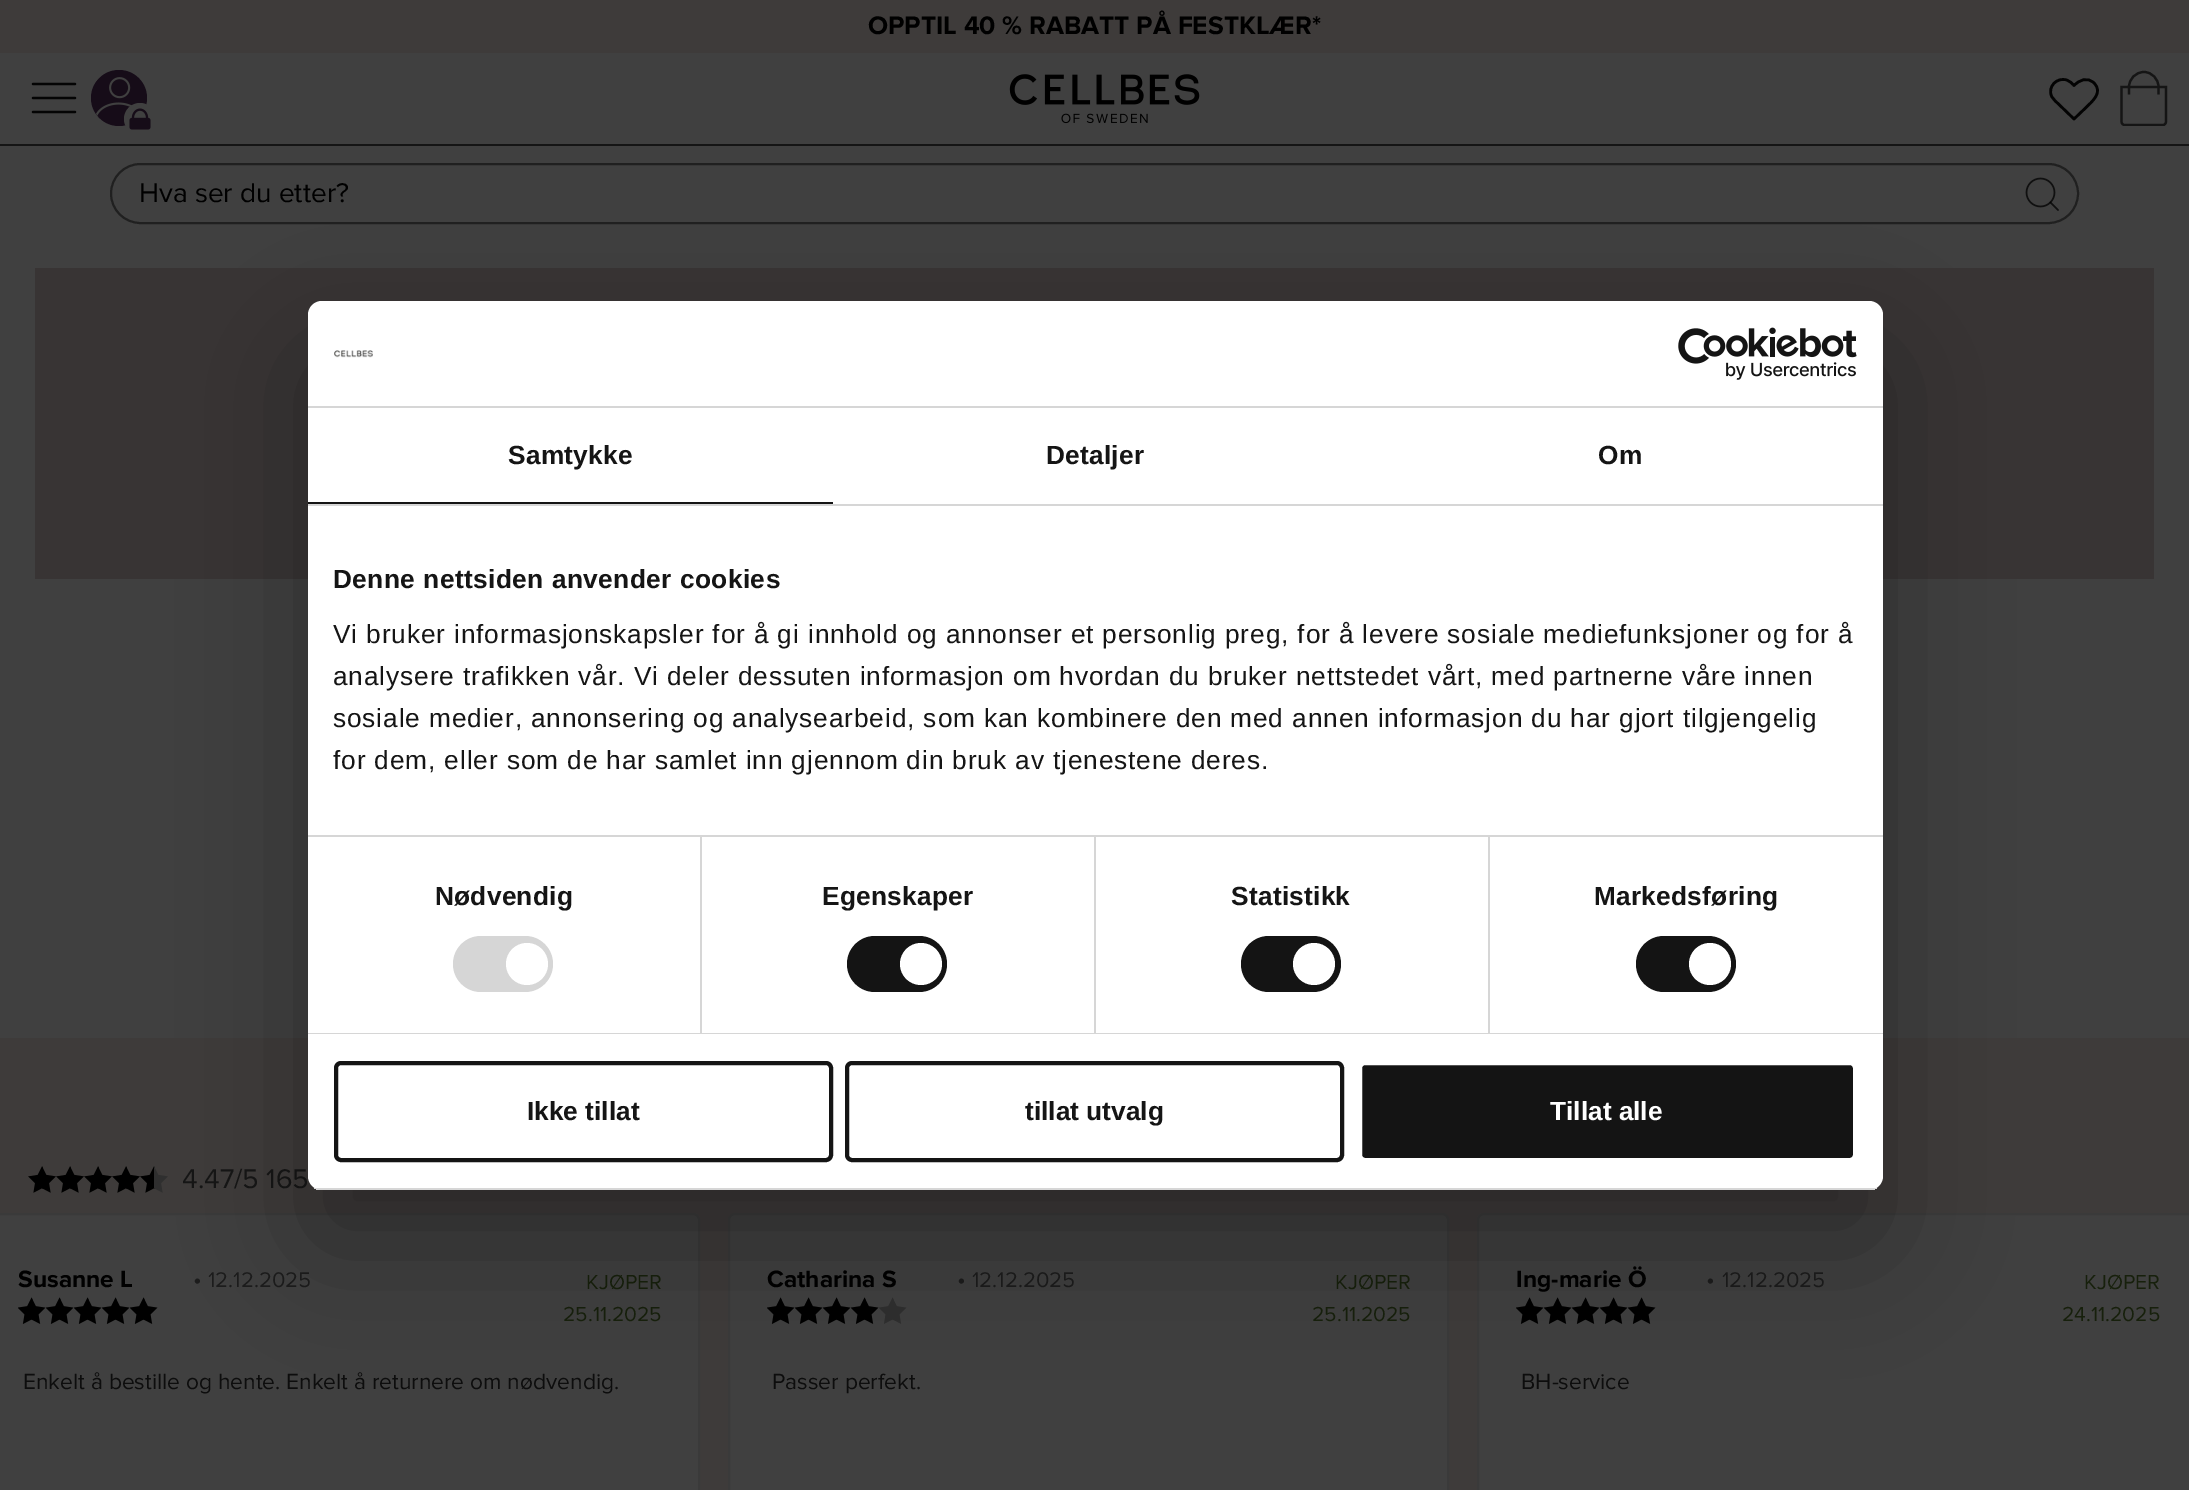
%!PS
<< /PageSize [2189 1490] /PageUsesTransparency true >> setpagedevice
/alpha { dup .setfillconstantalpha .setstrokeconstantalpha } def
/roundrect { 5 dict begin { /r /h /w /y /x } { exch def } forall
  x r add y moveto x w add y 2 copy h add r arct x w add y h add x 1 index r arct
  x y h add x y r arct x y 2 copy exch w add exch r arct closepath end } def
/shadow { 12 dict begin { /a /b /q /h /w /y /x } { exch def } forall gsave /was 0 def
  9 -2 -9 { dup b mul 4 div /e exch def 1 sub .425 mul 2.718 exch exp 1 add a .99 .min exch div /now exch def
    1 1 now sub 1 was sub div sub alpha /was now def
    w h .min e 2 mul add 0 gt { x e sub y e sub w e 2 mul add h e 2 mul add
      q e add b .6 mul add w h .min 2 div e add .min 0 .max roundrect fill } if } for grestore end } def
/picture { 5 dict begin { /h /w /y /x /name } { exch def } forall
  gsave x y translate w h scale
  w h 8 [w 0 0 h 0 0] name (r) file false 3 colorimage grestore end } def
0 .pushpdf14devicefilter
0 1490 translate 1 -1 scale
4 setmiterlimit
0.251 setgray
0 0 2189 1490 rectfill
0.243 0.231 0.227 setrgbcolor
0 0 2189 53 rectfill
/ProximaNova-Bold [26.25 0 0 -26.25 0 0] selectfont
0 setgray
868 34 moveto (OPPTIL 40 % RABATT PÅ FESTKLÆR*) show
0.082 setgray
0 144 2189 2 rectfill
0.016 setgray
2.3 setlinewidth
1 setlinecap
1 setlinejoin
newpath 33 98 moveto 75 98 lineto 33 84 moveto 75 84 lineto 33 112 moveto 75 112 lineto stroke
0.086 0.047 0.094 setrgbcolor
newpath 119 98 28 0 360 arc closepath fill
(img1.rgb) 96 77 37 39 picture
0.251 setgray
newpath 140 119 16 0 360 arc closepath fill
(img2.rgb) 129 108 22 22 picture
(img3.rgb) 1009 74 191 50 picture
0.012 setgray
2.6 setlinewidth
newpath 2094 83 moveto 2087 76.5 2079.5 80 2074 85.5 curveto 2072 83 2069.5 81 2066.5 80 curveto 2057 77 2047.5 86.5 2051.5 96 curveto 2053 99.5 2057 102.5 2059.5 105 curveto 2074 119 lineto 2085.5 108 lineto 2092 101.5 2103.5 92.5 2094 83 curveto closepath stroke
gsave
2116 70 56 56 rectclip
0.082 setgray
2.2 setlinewidth
0 setlinecap
0 setlinejoin
newpath 2121.5 87 moveto 2166 87 lineto 2166 121.5 lineto 2166 123.5 2164.5 125 2163 125 curveto 2124.5 125 lineto 2123 125 2121.5 123.5 2121.5 121.5 curveto closepath stroke
grestore
0.082 setgray
2.2 setlinewidth
0 setlinecap
0 setlinejoin
newpath 2129 94.5 moveto 2129 87 lineto 2129 79 2135.5 72 2144 72 curveto 2152 72 2158.5 79 2158.5 87 curveto 2158.5 94.5 lineto stroke
0.125 setgray
2 setlinewidth
111 164 1967 59 29.5 roundrect stroke
/ProximaNova-Regular [28 0 0 -28 0 0] selectfont
0 setgray
139 202 moveto (Hva ser du etter?) show
(img4.rgb) 2025 177 34 34 picture
0.22 0.204 0.204 setrgbcolor
35 268 2119 311 rectfill
0.243 0.231 0.227 setrgbcolor
0 1038 2189 452 rectfill
(img5.rgb) 28 1166 28 27 picture
(img5.rgb) 56 1166 28 27 picture
(img5.rgb) 84 1166 28 27 picture
(img5.rgb) 112 1166 28 27 picture
(img6.rgb) 140 1166 28 27 picture
0.082 setgray
182 1188 moveto (4.47/5 165) show
0.251 setgray
newpath 0 1213 moveto 693 1213 lineto 697 1213 700 1216 700 1220 curveto 700 1490 lineto 700 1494 697 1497 693 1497 curveto 0 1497 lineto closepath fill
0.227 setgray
-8 1214 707 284 6 roundrect stroke
/ProximaNova-Bold [24.5 0 0 -24.5 0 0] selectfont
0 setgray
18 1287 moveto (Susanne L) show
/ProximaNova-Regular [24.5 0 0 -24.5 0 0] selectfont
0.11 setgray
193 1287 moveto (•) show
/ProximaNova-Regular [22 0 0 -22 0 0] selectfont
208 1287 moveto (12.12.2025) show
(img7.rgb) 18 1297 28 27 picture
(img7.rgb) 46 1297 28 27 picture
(img7.rgb) 74 1297 28 27 picture
(img7.rgb) 102 1297 28 27 picture
(img7.rgb) 130 1297 28 27 picture
/ProximaNova-Regular [21 0 0 -21 0 0] selectfont
0.09 0.125 0.047 setrgbcolor
586 1289 moveto (KJØPER) show
563 1321 moveto (25.11.2025) show
/ProximaNova-Regular [22.75 0 0 -22.75 0 0] selectfont
0.051 setgray
23 1389 moveto (Enkelt å bestille og hente. Enkelt å returnere om nødvendig.) show
0.251 setgray
729 1214 719 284 6 roundrect gsave fill grestore
0.227 setgray
stroke
/ProximaNova-Bold [24.5 0 0 -24.5 0 0] selectfont
0 setgray
767 1287 moveto (Catharina S) show
/ProximaNova-Regular [24.5 0 0 -24.5 0 0] selectfont
0.11 setgray
957 1287 moveto (•) show
/ProximaNova-Regular [22 0 0 -22 0 0] selectfont
972 1287 moveto (12.12.2025) show
(img7.rgb) 767 1297 28 27 picture
(img7.rgb) 795 1297 28 27 picture
(img7.rgb) 823 1297 28 27 picture
(img7.rgb) 851 1297 28 27 picture
(img8.rgb) 879 1297 28 27 picture
/ProximaNova-Regular [21 0 0 -21 0 0] selectfont
0.09 0.125 0.047 setrgbcolor
1335 1289 moveto (KJØPER) show
1312 1321 moveto (25.11.2025) show
/ProximaNova-Regular [22.75 0 0 -22.75 0 0] selectfont
0.051 setgray
772 1389 moveto (Passer perfekt.) show
0.251 setgray
newpath 1484 1213 moveto 2189 1213 lineto 2189 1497 lineto 1484 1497 lineto 1480 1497 1477 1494 1477 1490 curveto 1477 1220 lineto 1477 1216 1480 1213 1484 1213 curveto closepath fill
0.227 setgray
1478 1214 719 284 6 roundrect stroke
/ProximaNova-Bold [24.5 0 0 -24.5 0 0] selectfont
0 setgray
1516 1287 moveto (Ing-marie Ö) show
/ProximaNova-Regular [24.5 0 0 -24.5 0 0] selectfont
0.11 setgray
1706 1287 moveto (•) show
/ProximaNova-Regular [22 0 0 -22 0 0] selectfont
1722 1287 moveto (12.12.2025) show
(img7.rgb) 1516 1297 28 27 picture
(img7.rgb) 1544 1297 28 27 picture
(img7.rgb) 1572 1297 28 27 picture
(img7.rgb) 1600 1297 28 27 picture
(img7.rgb) 1628 1297 28 27 picture
/ProximaNova-Regular [21 0 0 -21 0 0] selectfont
0.09 0.125 0.047 setrgbcolor
2084 1289 moveto (KJØPER) show
2062 1321 moveto (24.11.2025) show
/ProximaNova-Regular [22.75 0 0 -22.75 0 0] selectfont
0.051 setgray
1521 1389 moveto (BH-service) show
0 setgray
308 357 1575 889 14 59.5 0.3 shadow
1 setgray
308 301 1575 889 14 roundrect fill
0.839 setgray
308 406 1575 2 rectfill
(img9.rgb) 334 350 39 8 picture
(img10.rgb) 1678 327 179 53 picture
308 504 1575 2 rectfill
0.078 setgray
308 502 525 2 rectfill
/LiberationSans-Bold [26.25 0 0 -26.25 0 0] selectfont
0.082 setgray
508 464 moveto 0.25 0 (Samtykke) ashow
1046 464 moveto 0.25 0 (Detaljer) ashow
1598 464 moveto 0.25 0 (Om) ashow
0.839 setgray
308 835 1575 2 rectfill
0.082 setgray
333 588 moveto 0.45 0 (Denne nettsiden anvender cookies) ashow
/LiberationSans-Regular [26.25 0 0 -26.25 0 0] selectfont
333 643 moveto 0.88 0 (Vi bruker informasjonskapsler for å gi innhold og annonser et personlig preg, for å levere sosiale mediefunksjoner og for å) ashow
333 685 moveto 0.88 0 (analysere trafikken vår. Vi deler dessuten informasjon om hvordan du bruker nettstedet vårt, med partnerne våre innen) ashow
333 727 moveto 0.88 0 (sosiale medier, annonsering og analysearbeid, som kan kombinere den med annen informasjon du har gjort tilgjengelig) ashow
333 769 moveto 0.88 0 (for dem, eller som de har samlet inn gjennom din bruk av tjenestene deres.) ashow
0.839 setgray
308 1033 1575 1 rectfill
700 837 2 196 rectfill
/LiberationSans-Bold [26.25 0 0 -26.25 0 0] selectfont
0.082 setgray
435 905 moveto 0.25 0 (Nødvendig) ashow
0.839 setgray
453 936 100 56 28 roundrect fill
1 setgray
newpath 527 964 21 0 360 arc closepath fill
0.839 setgray
1094 837 2 196 rectfill
0.082 setgray
822 905 moveto 0.25 0 (Egenskaper) ashow
0.078 setgray
847 936 100 56 28 roundrect fill
1 setgray
newpath 921 964 21 0 360 arc closepath fill
0.839 setgray
1488 837 2 196 rectfill
0.082 setgray
1231 905 moveto 0.25 0 (Statistikk) ashow
0.078 setgray
1241 936 100 56 28 roundrect fill
1 setgray
newpath 1314 964 21 0 360 arc closepath fill
0.082 setgray
1594 905 moveto 0.25 0 (Markedsføring) ashow
0.078 setgray
1636 936 100 56 28 roundrect fill
1 setgray
newpath 1710 964 21 0 360 arc closepath fill
gsave
308 301 1575 889 14 roundrect clip newpath
0.839 setgray
308 1188 1575 2 rectfill
grestore
0.078 setgray
4 setlinewidth
336 1063 495 97 5 roundrect stroke
0.082 setgray
527 1120 moveto (Ikke tillat) show
0.078 setgray
847 1063 495 97 5 roundrect stroke
0.082 setgray
1025 1120 moveto (tillat utvalg) show
0.078 setgray
1360 1063 495 97 5 roundrect gsave fill grestore
1 setgray
stroke
1550 1120 moveto (Tillat alle) show
.poppdf14devicefilter showpage
